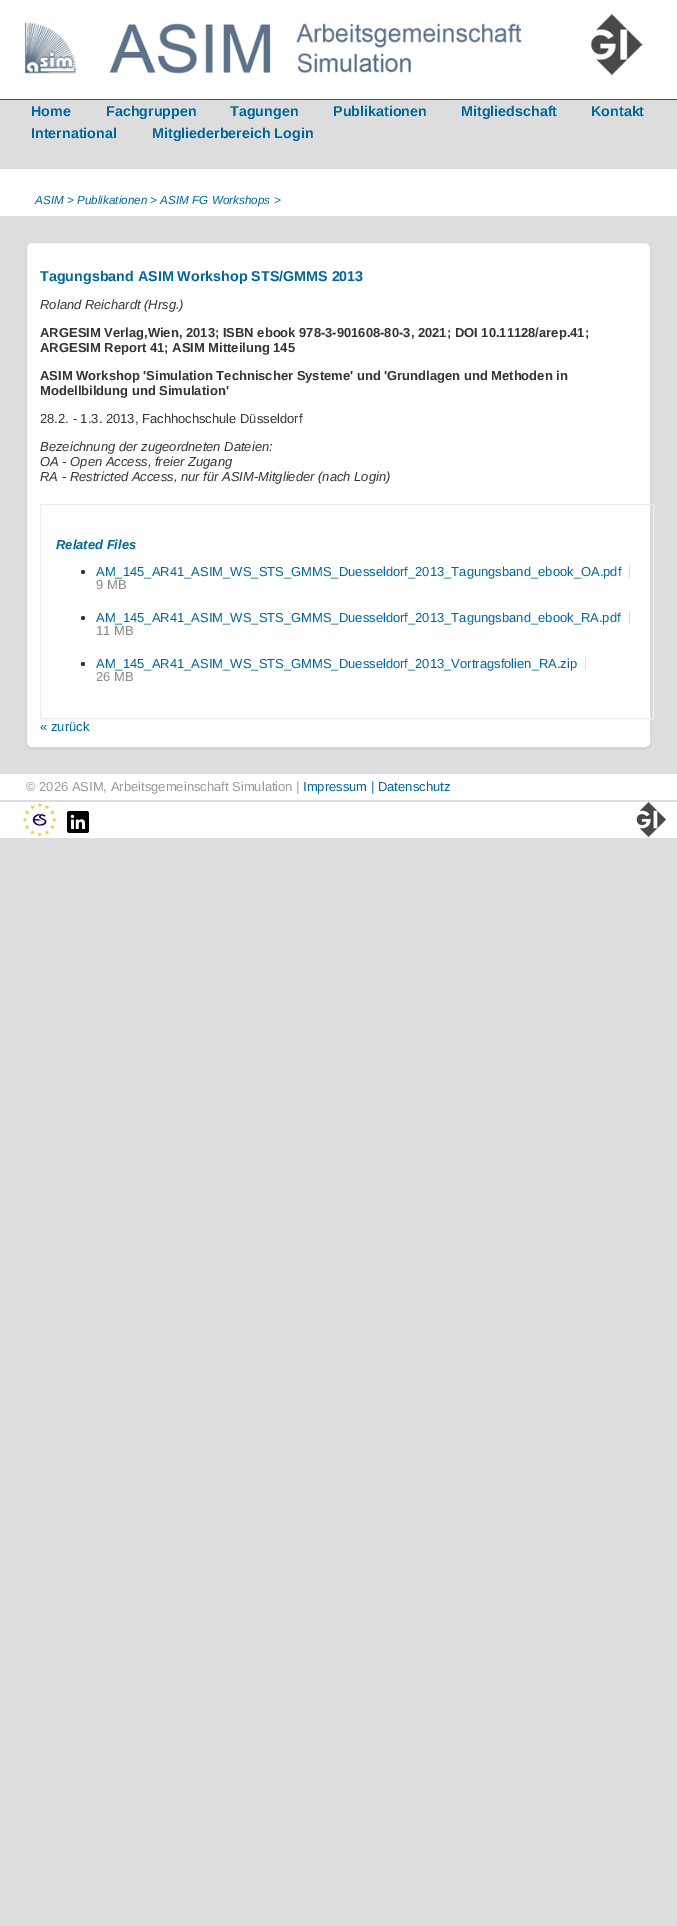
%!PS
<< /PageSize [677 1926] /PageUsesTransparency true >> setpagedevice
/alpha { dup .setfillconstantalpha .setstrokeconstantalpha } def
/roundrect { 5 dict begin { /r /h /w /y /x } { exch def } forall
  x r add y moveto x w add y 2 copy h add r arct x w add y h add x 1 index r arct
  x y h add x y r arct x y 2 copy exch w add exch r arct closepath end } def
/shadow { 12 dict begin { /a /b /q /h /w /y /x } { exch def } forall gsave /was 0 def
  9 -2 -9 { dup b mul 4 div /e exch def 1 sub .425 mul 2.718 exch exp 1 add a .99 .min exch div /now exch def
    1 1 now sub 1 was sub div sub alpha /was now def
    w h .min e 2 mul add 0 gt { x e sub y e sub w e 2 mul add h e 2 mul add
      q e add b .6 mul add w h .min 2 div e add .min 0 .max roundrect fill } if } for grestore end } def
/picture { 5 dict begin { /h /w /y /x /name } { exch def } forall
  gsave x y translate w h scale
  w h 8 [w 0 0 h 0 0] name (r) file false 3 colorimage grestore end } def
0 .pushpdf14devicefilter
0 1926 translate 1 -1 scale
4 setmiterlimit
0.867 setgray
0 0 677 1926 rectfill
1 setgray
0 0 677 99 rectfill
(img1.rgb) 24 22 498 52 picture
(img2.rgb) 590 13 53 63 picture
0 0.4 0.6 setrgbcolor
0 99 677 1 rectfill
/LiberationSans-Bold [14.3 0 0 -14.3 0 0] selectfont
31 116 moveto (Home) show
106 116 moveto (Fachgruppen) show
230 116 moveto (Tagungen) show
333 116 moveto (Publikationen) show
461 116 moveto (Mitgliedschaft) show
591 116 moveto (Kontakt) show
31 138 moveto (International) show
152 138 moveto (Mitgliederbereich Login) show
1 setgray
0 169 677 47 rectfill
/LiberationSans-Italic [11.7 0 0 -11.7 0 0] selectfont
0 0.4 0.6 setrgbcolor
35 204 moveto (ASIM > Publikationen > ASIM FG Workshops >) show
0 setgray
27 244 623 504 5 1 0.25 shadow
1 setgray
26.5 242.5 624 505 5.5 roundrect gsave fill grestore
0.855 setgray
stroke
/LiberationSans-Bold [14.3 0 0 -14.3 0 0] selectfont
0 0.4 0.6 setrgbcolor
40 281 moveto (Tagungsband ASIM Workshop STS/GMMS 2013) show
/LiberationSans-Italic [13 0 0 -13 0 0] selectfont
0.2 setgray
40 309 moveto (Roland Reichardt \(Hrsg.\)) show
/LiberationSans-Bold [13 0 0 -13 0 0] selectfont
40 337 moveto (ARGESIM Verlag,Wien, 2013; ISBN ebook 978-3-901608-80-3, 2021; DOI 10.11128/arep.41;) show
40 352 moveto (ARGESIM Report 41; ASIM Mitteilung 145) show
40 380 moveto (ASIM Workshop 'Simulation Technischer Systeme' und 'Grundlagen und Methoden in) show
40 395 moveto (Modellbildung und Simulation') show
/LiberationSans-Regular [13 0 0 -13 0 0] selectfont
40 423 moveto (28.2. - 1.3. 2013, Fachhochschule Düsseldorf) show
/LiberationSans-Italic [13 0 0 -13 0 0] selectfont
40 451 moveto (Bezeichnung der zugeordneten Dateien:) show
40 466 moveto (OA - Open Access, freier Zugang) show
40 481 moveto (RA - Restricted Access, nur für ASIM-Mitglieder \(nach Login\)) show
0.933 setgray
40.5 504.5 613 214 rectstroke
/LiberationSans-BoldItalic [13 0 0 -13 0 0] selectfont
0 0.4 0.6 setrgbcolor
56 549 moveto (Related Files) show
0.2 setgray
newpath 83 572 2 0 360 arc closepath fill
0.867 setgray
629 565 1 13 rectfill
/LiberationSans-Regular [13 0 0 -13 0 0] selectfont
0 0.4 0.6 setrgbcolor
96 576 moveto (AM_145_AR41_ASIM_WS_STS_GMMS_Duesseldorf_2013_Tagungsband_ebook_OA.pdf) show
0.533 setgray
96 589 moveto (9 MB) show
0.2 setgray
newpath 83 618 2 0 360 arc closepath fill
0.867 setgray
629 611 1 13 rectfill
0 0.4 0.6 setrgbcolor
96 622 moveto (AM_145_AR41_ASIM_WS_STS_GMMS_Duesseldorf_2013_Tagungsband_ebook_RA.pdf) show
0.533 setgray
96 635 moveto (11 MB) show
0.2 setgray
newpath 83 664 2 0 360 arc closepath fill
0.867 setgray
585 657 1 13 rectfill
0 0.4 0.6 setrgbcolor
96 668 moveto (AM_145_AR41_ASIM_WS_STS_GMMS_Duesseldorf_2013_Vortragsfolien_RA.zip) show
0.533 setgray
96 681 moveto (26 MB) show
0 0.4 0.6 setrgbcolor
40 731 moveto (« zurück) show
1 setgray
0 774 677 26 rectfill
0.6 setgray
26 791 moveto (© 2026 ASIM, Arbeitsgemeinschaft Simulation |) show
0 0.4 0.6 setrgbcolor
303 791 moveto (Impressum | Datenschutz) show
1 setgray
0 802 677 36 rectfill
(img3.rgb) 22 802 35 35 picture
(img4.rgb) 67 811 22 22 picture
(img5.rgb) 636 802 30 35 picture
.poppdf14devicefilter showpage
